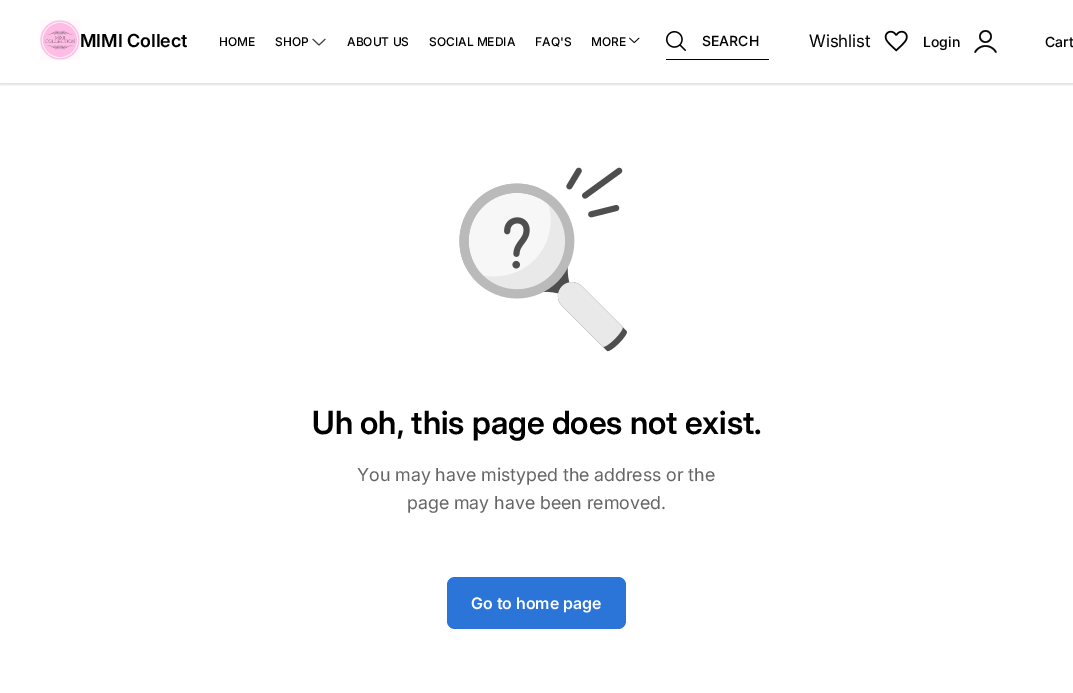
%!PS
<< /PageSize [1073 693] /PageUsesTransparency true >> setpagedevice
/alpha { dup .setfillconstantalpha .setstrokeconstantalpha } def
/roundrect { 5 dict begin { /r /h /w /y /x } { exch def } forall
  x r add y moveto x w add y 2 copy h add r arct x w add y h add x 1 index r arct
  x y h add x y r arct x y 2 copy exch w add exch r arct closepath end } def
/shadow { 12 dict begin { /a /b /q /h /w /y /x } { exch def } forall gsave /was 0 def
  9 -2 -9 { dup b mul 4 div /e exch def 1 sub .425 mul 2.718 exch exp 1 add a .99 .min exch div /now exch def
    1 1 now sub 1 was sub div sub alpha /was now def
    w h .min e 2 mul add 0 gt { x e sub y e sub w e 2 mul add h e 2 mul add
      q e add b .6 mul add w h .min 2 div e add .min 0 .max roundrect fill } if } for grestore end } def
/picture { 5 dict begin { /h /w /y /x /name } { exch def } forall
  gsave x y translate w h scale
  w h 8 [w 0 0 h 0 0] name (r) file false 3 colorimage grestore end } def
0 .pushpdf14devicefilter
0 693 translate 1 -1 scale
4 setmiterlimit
1 setgray
0 0 1073 693 rectfill
gsave
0 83 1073 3 rectclip
0 setgray
0 0 1073 83 0 2.5 0.25 shadow
grestore
(img1.rgb) 40 20 40 40 picture
/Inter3-SemiBold [18 0 0 -18 0 0] selectfont
0 setgray
80 47 moveto (MIMI Collect) show
/Inter-Medium [12 0 0 -12 0 0] selectfont
219 46 moveto (HOME) show
275 46 moveto (SHOP) show
(img2.rgb) 312 38 14 8 picture
347 46 moveto (ABOUT US) show
429 46 moveto (SOCIAL MEDIA) show
535 46 moveto (FAQ'S) show
591 46 moveto (MORE) show
(img3.rgb) 629 37 11 7 picture
666 59 103 1 rectfill
(img4.rgb) 666 31 20 20 picture
/Inter-Medium [14 0 0 -14 0 0] selectfont
702 46 moveto (SEARCH) show
/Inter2-Regular [17 0 0 -17 0 0] selectfont
809 47 moveto (Wishlist) show
(img5.rgb) 884 30 24 22 picture
/Inter-Medium [14 0 0 -14 0 0] selectfont
923 47 moveto (Login) show
(img6.rgb) 974 30 23 23 picture
1045 47 moveto (Cart) show
(img7.rgb) 459 167 168 185 picture
/Inter-SemiBold [32 0 0 -32 0 0] selectfont
312 434 moveto (Uh oh, this page does not exist.) show
/Inter-Regular [18 0 0 -18 0 0] selectfont
0.4 setgray
357 481 moveto (You may have mistyped the address or the) show
407 509 moveto (page may have been removed.) show
0.169 0.455 0.847 setrgbcolor
447 577 179 52 8 roundrect fill
/Inter2-SemiBold [16 0 0 -16 0 0] selectfont
1 setgray
471 609 moveto (Go to home page) show
.poppdf14devicefilter showpage
